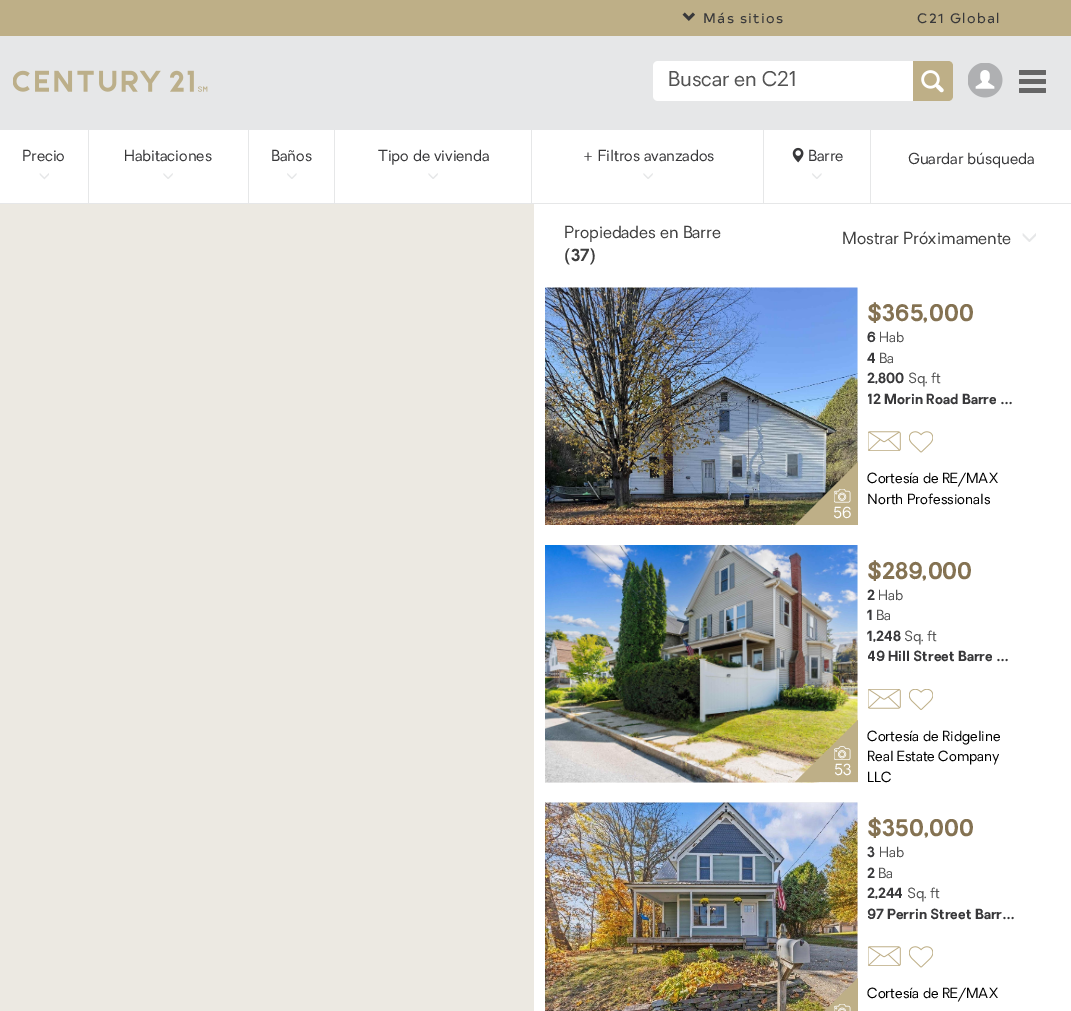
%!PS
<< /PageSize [1071 1011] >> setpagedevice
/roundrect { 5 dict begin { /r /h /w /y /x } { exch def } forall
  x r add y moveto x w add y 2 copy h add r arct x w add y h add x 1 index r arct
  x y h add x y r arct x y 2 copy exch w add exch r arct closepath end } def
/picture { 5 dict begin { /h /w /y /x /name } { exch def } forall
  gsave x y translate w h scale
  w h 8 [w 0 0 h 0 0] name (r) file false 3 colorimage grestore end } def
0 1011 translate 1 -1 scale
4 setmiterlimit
1 setgray
0 0 1071 1011 rectfill
0.745 0.686 0.529 setrgbcolor
0 0 1071 36 rectfill
(img1.rgb) 682 12 13 9 picture
/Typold-Regular [13.75 0 0 -13.75 0 0] selectfont
0.22 0.22 0.227 setrgbcolor
703 23 moveto 1.25 0 (Más sitios) ashow
917 23 moveto 1.25 0 (C21 Global) ashow
0.902 0.906 0.91 setrgbcolor
0 36 1071 94 rectfill
(img2.rgb) 13 70 195 22 picture
1 setgray
653 61 300 40 5 roundrect fill
gsave
668 71 215 20 rectclip
/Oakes-Regular [20 0 0 -20 0 0] selectfont
0.325 setgray
668 86 moveto (Buscar en C21) show
grestore
0.745 0.686 0.529 setrgbcolor
newpath 913 61 moveto 948 61 lineto 951 61 953 63 953 66 curveto 953 96 lineto 953 99 951 101 948 101 curveto 913 101 lineto closepath fill
(img3.rgb) 921 70 23 23 picture
(img4.rgb) 968 63 35 35 picture
0.4 setgray
1019 70 27 5 1 roundrect fill
1019 79 27 5 1 roundrect fill
1019 88 27 5 1 roundrect fill
0.902 0.906 0.91 setrgbcolor
0 203 1071 1 rectfill
/Oakes-Regular [15 0 0 -15 0 0] selectfont
0.22 0.22 0.227 setrgbcolor
22 161 moveto (Precio) show
(img5.rgb) 39 173 10 7 picture
0.902 0.906 0.91 setrgbcolor
88 130 1 74 rectfill
0.22 0.22 0.227 setrgbcolor
124 161 moveto (Habitaciones) show
(img6.rgb) 163 173 10 6 picture
0.902 0.906 0.91 setrgbcolor
248 130 1 74 rectfill
0.22 0.22 0.227 setrgbcolor
271 161 moveto (Baños) show
(img7.rgb) 287 173 10 6 picture
0.902 0.906 0.91 setrgbcolor
334 130 1 74 rectfill
0.22 0.22 0.227 setrgbcolor
378 161 moveto (Tipo de vivienda) show
(img6.rgb) 428 173 10 6 picture
0.902 0.906 0.91 setrgbcolor
531 130 1 74 rectfill
0.22 0.22 0.227 setrgbcolor
582 161 moveto (+ Filtros avanzados) show
(img6.rgb) 643 173 10 6 picture
0.902 0.906 0.91 setrgbcolor
763 130 1 74 rectfill
(img8.rgb) 792 147 12 16 picture
0.22 0.22 0.227 setrgbcolor
808 161 moveto (Barre) show
(img7.rgb) 812 173 10 6 picture
0.902 0.906 0.91 setrgbcolor
870 130 1 74 rectfill
0.22 0.22 0.227 setrgbcolor
908 164 moveto (Guardar búsqueda) show
0.925 0.914 0.886 setrgbcolor
0 204 534 807 rectfill
/Oakes-Regular [16.25 0 0 -16.25 0 0] selectfont
0.247 setgray
564 238 moveto (Propiedades en Barre) show
/Oakes-Bold [16.25 0 0 -16.25 0 0] selectfont
564 261 moveto (\(37\)) show
/Oakes-Regular [16.25 0 0 -16.25 0 0] selectfont
842 244 moveto (Mostrar Próximamente) show
(img9.rgb) 1022 233 14 9 picture
/Oakes-Bold [22.5 0 0 -22.5 0 0] selectfont
0.518 0.447 0.322 setrgbcolor
867 321 moveto ($365,000) show
/Oakes-Bold [13.75 0 0 -13.75 0 0] selectfont
0.22 0.22 0.227 setrgbcolor
867 342 moveto (6) show
/Oakes-Regular [13.75 0 0 -13.75 0 0] selectfont
0.325 setgray
879 342 moveto (Hab) show
/Oakes-Bold [13.75 0 0 -13.75 0 0] selectfont
0.22 0.22 0.227 setrgbcolor
867 363 moveto (4) show
/Oakes-Regular [13.75 0 0 -13.75 0 0] selectfont
0.325 setgray
879 363 moveto (Ba) show
/Oakes-Bold [13.75 0 0 -13.75 0 0] selectfont
0.22 0.22 0.227 setrgbcolor
867 383 moveto (2,800) show
/Oakes-Regular [13.75 0 0 -13.75 0 0] selectfont
0.325 setgray
908 383 moveto (Sq. ft) show
gsave
868 391 147 22 rectclip
/Oakes-Bold [13.75 0 0 -13.75 0 0] selectfont
0.22 0.22 0.227 setrgbcolor
867 404 moveto (12 Morin Road Barre …) show
grestore
(img10.rgb) 868 431 33 20 picture
(img11.rgb) 909 431 24 22 picture
0 setgray
867 483 moveto (Cortesía de RE/MAX) show
867 504 moveto (North Professionals) show
0.976 setgray
857 288 1 175 rectfill
(img12.rgb) 545 287 313 238 picture
0.745 0.686 0.529 setrgbcolor
newpath 858 525 moveto 795 525 lineto 858 462 lineto closepath fill
(img13.rgb) 834 489 17 14 picture
/Oakes-Regular [15 0 0 -15 0 0] selectfont
1 setgray
833 518 moveto (56) show
0.976 setgray
545 545 313 238 rectfill
(img14.rgb) 545 545 313 238 picture
0.745 0.686 0.529 setrgbcolor
newpath 858 782 moveto 795 782 lineto 858 720 lineto closepath fill
(img15.rgb) 834 746 17 14 picture
1 setgray
834 775 moveto (53) show
/Oakes-Bold [22.5 0 0 -22.5 0 0] selectfont
0.518 0.447 0.322 setrgbcolor
867 579 moveto ($289,000) show
/Oakes-Bold [13.75 0 0 -13.75 0 0] selectfont
0.22 0.22 0.227 setrgbcolor
867 600 moveto (2) show
/Oakes-Regular [13.75 0 0 -13.75 0 0] selectfont
0.325 setgray
878 600 moveto (Hab) show
/Oakes-Bold [13.75 0 0 -13.75 0 0] selectfont
0.22 0.22 0.227 setrgbcolor
867 620 moveto (1) show
/Oakes-Regular [13.75 0 0 -13.75 0 0] selectfont
0.325 setgray
876 620 moveto (Ba) show
/Oakes-Bold [13.75 0 0 -13.75 0 0] selectfont
0.22 0.22 0.227 setrgbcolor
867 641 moveto (1,248) show
/Oakes-Regular [13.75 0 0 -13.75 0 0] selectfont
0.325 setgray
904 641 moveto (Sq. ft) show
gsave
868 649 147 21 rectclip
/Oakes-Bold [13.75 0 0 -13.75 0 0] selectfont
0.22 0.22 0.227 setrgbcolor
867 661 moveto (49 Hill Street Barre …) show
grestore
(img16.rgb) 868 689 33 20 picture
(img17.rgb) 909 689 24 21 picture
0 setgray
867 741 moveto (Cortesía de Ridgeline) show
867 761 moveto (Real Estate Company) show
867 782 moveto (LLC) show
0.976 setgray
857 803 1 176 rectfill
(img18.rgb) 545 802 313 209 picture
0.745 0.686 0.529 setrgbcolor
newpath 858 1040 moveto 795 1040 lineto 858 978 lineto closepath fill
(img19.rgb) 834 1004 17 7 picture
/Oakes-Bold [22.5 0 0 -22.5 0 0] selectfont
0.518 0.447 0.322 setrgbcolor
867 836 moveto ($350,000) show
/Oakes-Bold [13.75 0 0 -13.75 0 0] selectfont
0.22 0.22 0.227 setrgbcolor
867 857 moveto (3) show
/Oakes-Regular [13.75 0 0 -13.75 0 0] selectfont
0.325 setgray
879 857 moveto (Hab) show
/Oakes-Bold [13.75 0 0 -13.75 0 0] selectfont
0.22 0.22 0.227 setrgbcolor
867 878 moveto (2) show
/Oakes-Regular [13.75 0 0 -13.75 0 0] selectfont
0.325 setgray
878 878 moveto (Ba) show
/Oakes-Bold [13.75 0 0 -13.75 0 0] selectfont
0.22 0.22 0.227 setrgbcolor
867 898 moveto (2,244) show
/Oakes-Regular [13.75 0 0 -13.75 0 0] selectfont
0.325 setgray
907 898 moveto (Sq. ft) show
/Oakes-Bold [13.75 0 0 -13.75 0 0] selectfont
0.22 0.22 0.227 setrgbcolor
867 919 moveto (97 Perrin Street Barr…) show
(img10.rgb) 868 946 33 20 picture
(img11.rgb) 909 946 24 22 picture
/Oakes-Regular [13.75 0 0 -13.75 0 0] selectfont
0 setgray
867 998 moveto (Cortesía de RE/MAX) show
showpage
